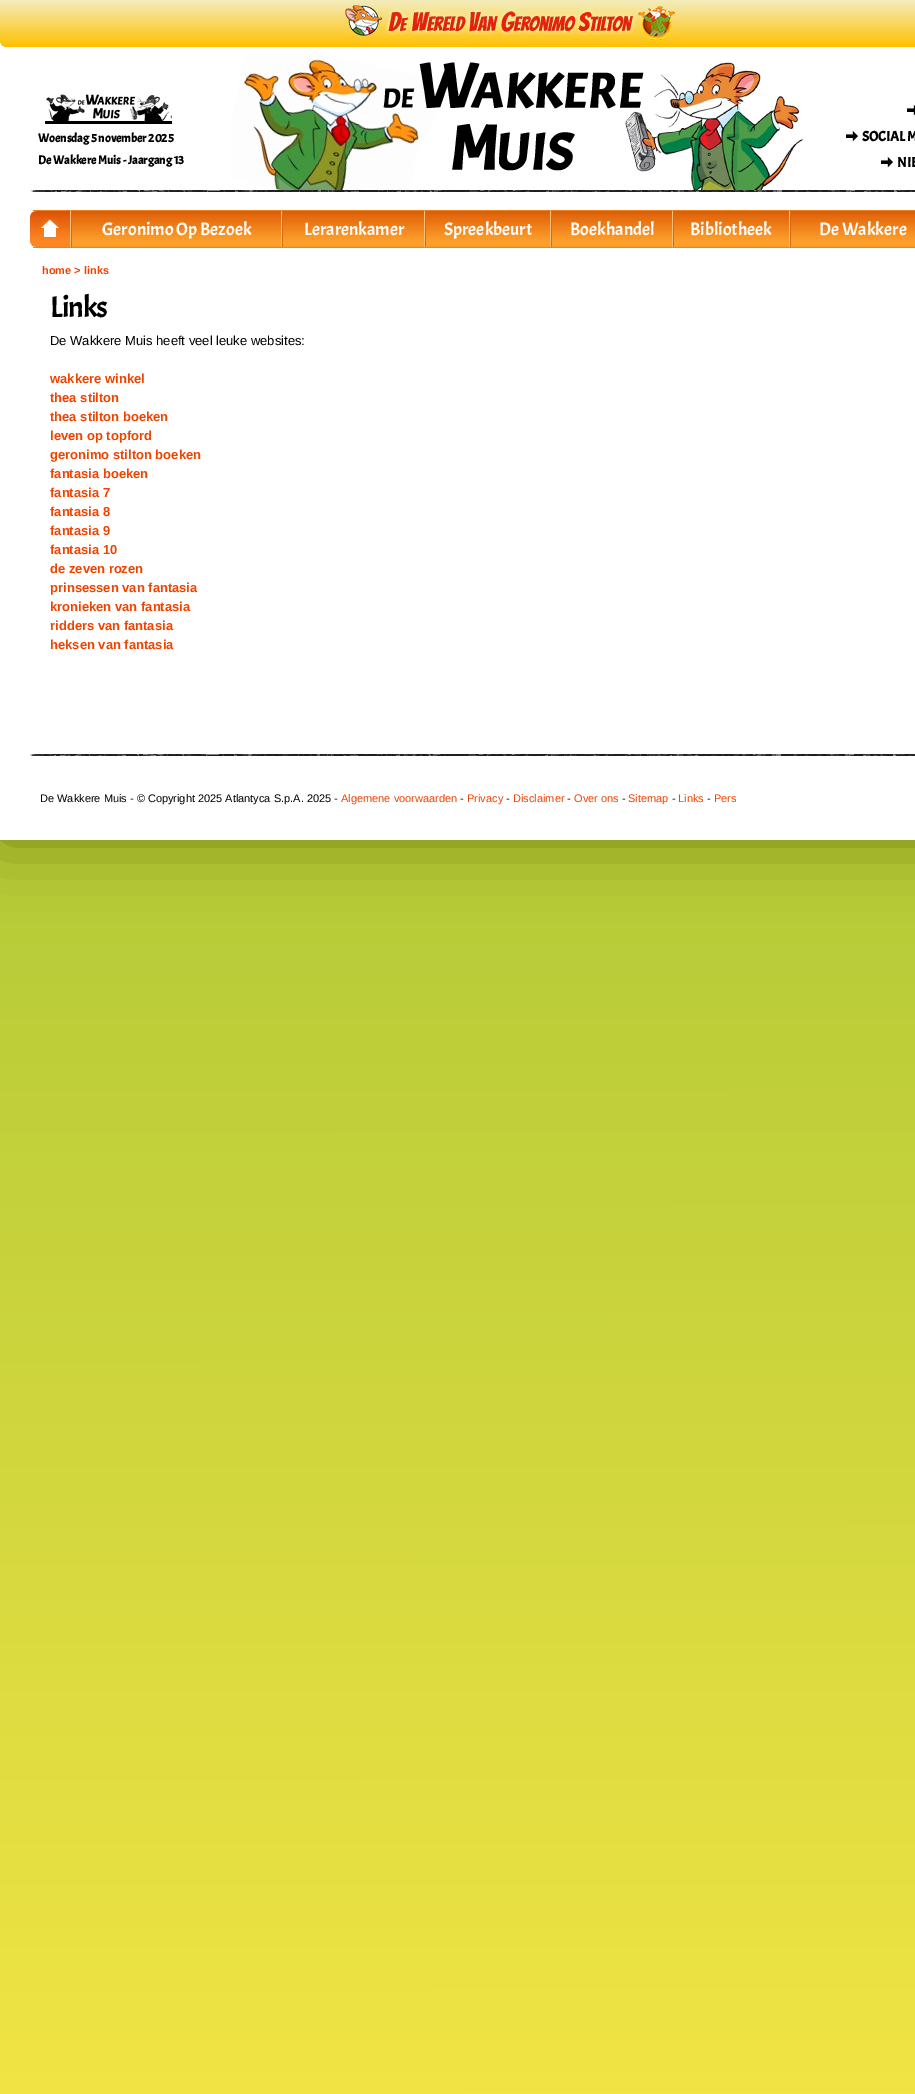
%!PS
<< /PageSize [915 2094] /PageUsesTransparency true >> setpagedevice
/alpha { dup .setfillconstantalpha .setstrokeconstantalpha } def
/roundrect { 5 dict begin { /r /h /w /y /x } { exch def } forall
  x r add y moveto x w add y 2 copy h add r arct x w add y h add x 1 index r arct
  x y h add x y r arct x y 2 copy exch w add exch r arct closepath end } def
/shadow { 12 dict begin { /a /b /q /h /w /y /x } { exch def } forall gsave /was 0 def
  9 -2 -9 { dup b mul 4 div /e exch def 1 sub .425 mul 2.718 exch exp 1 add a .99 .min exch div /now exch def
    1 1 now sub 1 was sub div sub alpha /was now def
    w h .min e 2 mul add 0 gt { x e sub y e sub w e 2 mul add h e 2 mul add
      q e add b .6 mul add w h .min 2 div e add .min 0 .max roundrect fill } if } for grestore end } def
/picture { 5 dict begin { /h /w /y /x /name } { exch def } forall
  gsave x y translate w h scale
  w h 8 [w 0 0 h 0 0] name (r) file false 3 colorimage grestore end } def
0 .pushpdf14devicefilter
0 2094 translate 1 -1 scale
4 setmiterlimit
1 setgray
0 0 915 2094 rectfill
gsave newpath 0 840 moveto 915 840 lineto 915 2094 lineto 0 2094 lineto closepath clip newpath
<< /ShadingType 2 /ColorSpace /DeviceRGB /Coords [457 0 458 2094] /Extend [true true] /Function << /FunctionType 2 /Domain [0 1] /C0 [0.545 0.725 0.188] /C1 [0.945 0.894 0.267] /N 1 >> >> shfill grestore
0.459 0.514 0.047 setrgbcolor
0 0 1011 840 0 32 1 shadow
1 setgray
0 39 915 801 rectfill
gsave newpath 0 0 moveto 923 0 lineto 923 39 lineto 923 43.5 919.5 47 915 47 curveto 8 47 lineto 3.5 47 0 43.5 0 39 curveto closepath clip newpath
<< /ShadingType 2 /ColorSpace /DeviceRGB /Coords [510 0 510 47] /Extend [true true] /Function << /FunctionType 2 /Domain [0 1] /C0 [0.953 0.929 0.741] /C1 [1 0.753 0] /N 1 >> >> shfill grestore
(img1.rgb) 345 5 330 35 picture
(img2.rgb) 31 53 884 139 picture
/Acme-Bold [12 0 0 -12 0 0] selectfont
0 setgray
38 142 moveto (Woensdag 5 november 2025) show
38 164 moveto (De Wakkere Muis - Jaargang 13) show
(img3.rgb) 907 104 8 12 picture
(img4.rgb) 846 130 15 12 picture
/Acme-Bold [14 0 0 -14 0 0] selectfont
862 141 moveto (SOCIAL M) show
(img4.rgb) 881 156 15 12 picture
897 167 moveto (NIE) show
0.929 0.506 0.102 setrgbcolor
33 210 882 1 rectfill
33 247 882 1 rectfill
(img5.rgb) 30 211 40 36 picture
0.969 0.753 0.478 setrgbcolor
70 211 1 36 rectfill
(img6.rgb) 41 218 18 20 picture
(img7.rgb) 72 211 209 36 picture
281 211 1 36 rectfill
0.839 0.424 0.067 setrgbcolor
71 211 1 36 rectfill
/Acme-Regular [18 0 0 -18 0 0] selectfont
1 setgray
102 235 moveto (Geronimo Op Bezoek) show
(img8.rgb) 283 211 141 36 picture
0.969 0.753 0.478 setrgbcolor
424 211 1 36 rectfill
0.839 0.424 0.067 setrgbcolor
282 211 1 36 rectfill
1 setgray
304 235 moveto (Lerarenkamer) show
(img9.rgb) 426 211 124 36 picture
0.969 0.753 0.478 setrgbcolor
550 211 1 36 rectfill
0.839 0.424 0.067 setrgbcolor
425 211 1 36 rectfill
1 setgray
444 235 moveto (Spreekbeurt) show
(img10.rgb) 552 211 120 36 picture
0.969 0.753 0.478 setrgbcolor
672 211 1 36 rectfill
0.839 0.424 0.067 setrgbcolor
551 211 1 36 rectfill
1 setgray
570 235 moveto (Boekhandel) show
(img11.rgb) 674 211 115 36 picture
0.969 0.753 0.478 setrgbcolor
789 211 1 36 rectfill
0.839 0.424 0.067 setrgbcolor
673 211 1 36 rectfill
1 setgray
690 235 moveto (Bibliotheek) show
(img9.rgb) 791 211 124 36 picture
0.839 0.424 0.067 setrgbcolor
790 211 1 36 rectfill
1 setgray
819 235 moveto (De Wakkere) show
/LiberationSans-Bold [11 0 0 -11 0 0] selectfont
0.937 0.263 0 setrgbcolor
42 274 moveto (home > links) show
/Acme-Regular [30 0 0 -30 0 0] selectfont
0 setgray
50 317 moveto -1 0 (Links) ashow
/LiberationSans-Regular [13 0 0 -13 0 0] selectfont
50 345 moveto (De Wakkere Muis heeft veel leuke websites:) show
/LiberationSans-Bold [13 0 0 -13 0 0] selectfont
0.937 0.263 0 setrgbcolor
50 383 moveto (wakkere winkel) show
50 402 moveto (thea stilton) show
50 421 moveto (thea stilton boeken) show
50 440 moveto (leven op topford) show
50 459 moveto (geronimo stilton boeken) show
50 478 moveto (fantasia boeken) show
50 497 moveto (fantasia 7) show
50 516 moveto (fantasia 8) show
50 535 moveto (fantasia 9) show
50 554 moveto (fantasia 10) show
50 573 moveto (de zeven rozen) show
50 592 moveto (prinsessen van fantasia) show
50 611 moveto (kronieken van fantasia) show
50 630 moveto (ridders van fantasia) show
50 649 moveto (heksen van fantasia) show
(img12.rgb) 30 754 885 2 picture
/LiberationSans-Regular [11 0 0 -11 0 0] selectfont
0 setgray
40 802 moveto (De Wakkere Muis - © Copyright 2025 Atlantyca S.p.A. 2025 -) show
0.937 0.263 0 setrgbcolor
341 802 moveto (Algemene voorwaarden) show
0 setgray
460 802 moveto (-) show
0.937 0.263 0 setrgbcolor
467 802 moveto (Privacy) show
0 setgray
506 802 moveto (-) show
0.937 0.263 0 setrgbcolor
513 802 moveto (Disclaimer) show
0 setgray
567 802 moveto (-) show
0.937 0.263 0 setrgbcolor
574 802 moveto (Over ons) show
0 setgray
622 802 moveto (-) show
0.937 0.263 0 setrgbcolor
628 802 moveto (Sitemap) show
0 setgray
672 802 moveto (-) show
0.937 0.263 0 setrgbcolor
678 802 moveto (Links) show
0 setgray
707 802 moveto (-) show
0.937 0.263 0 setrgbcolor
714 802 moveto (Pers) show
.poppdf14devicefilter showpage
